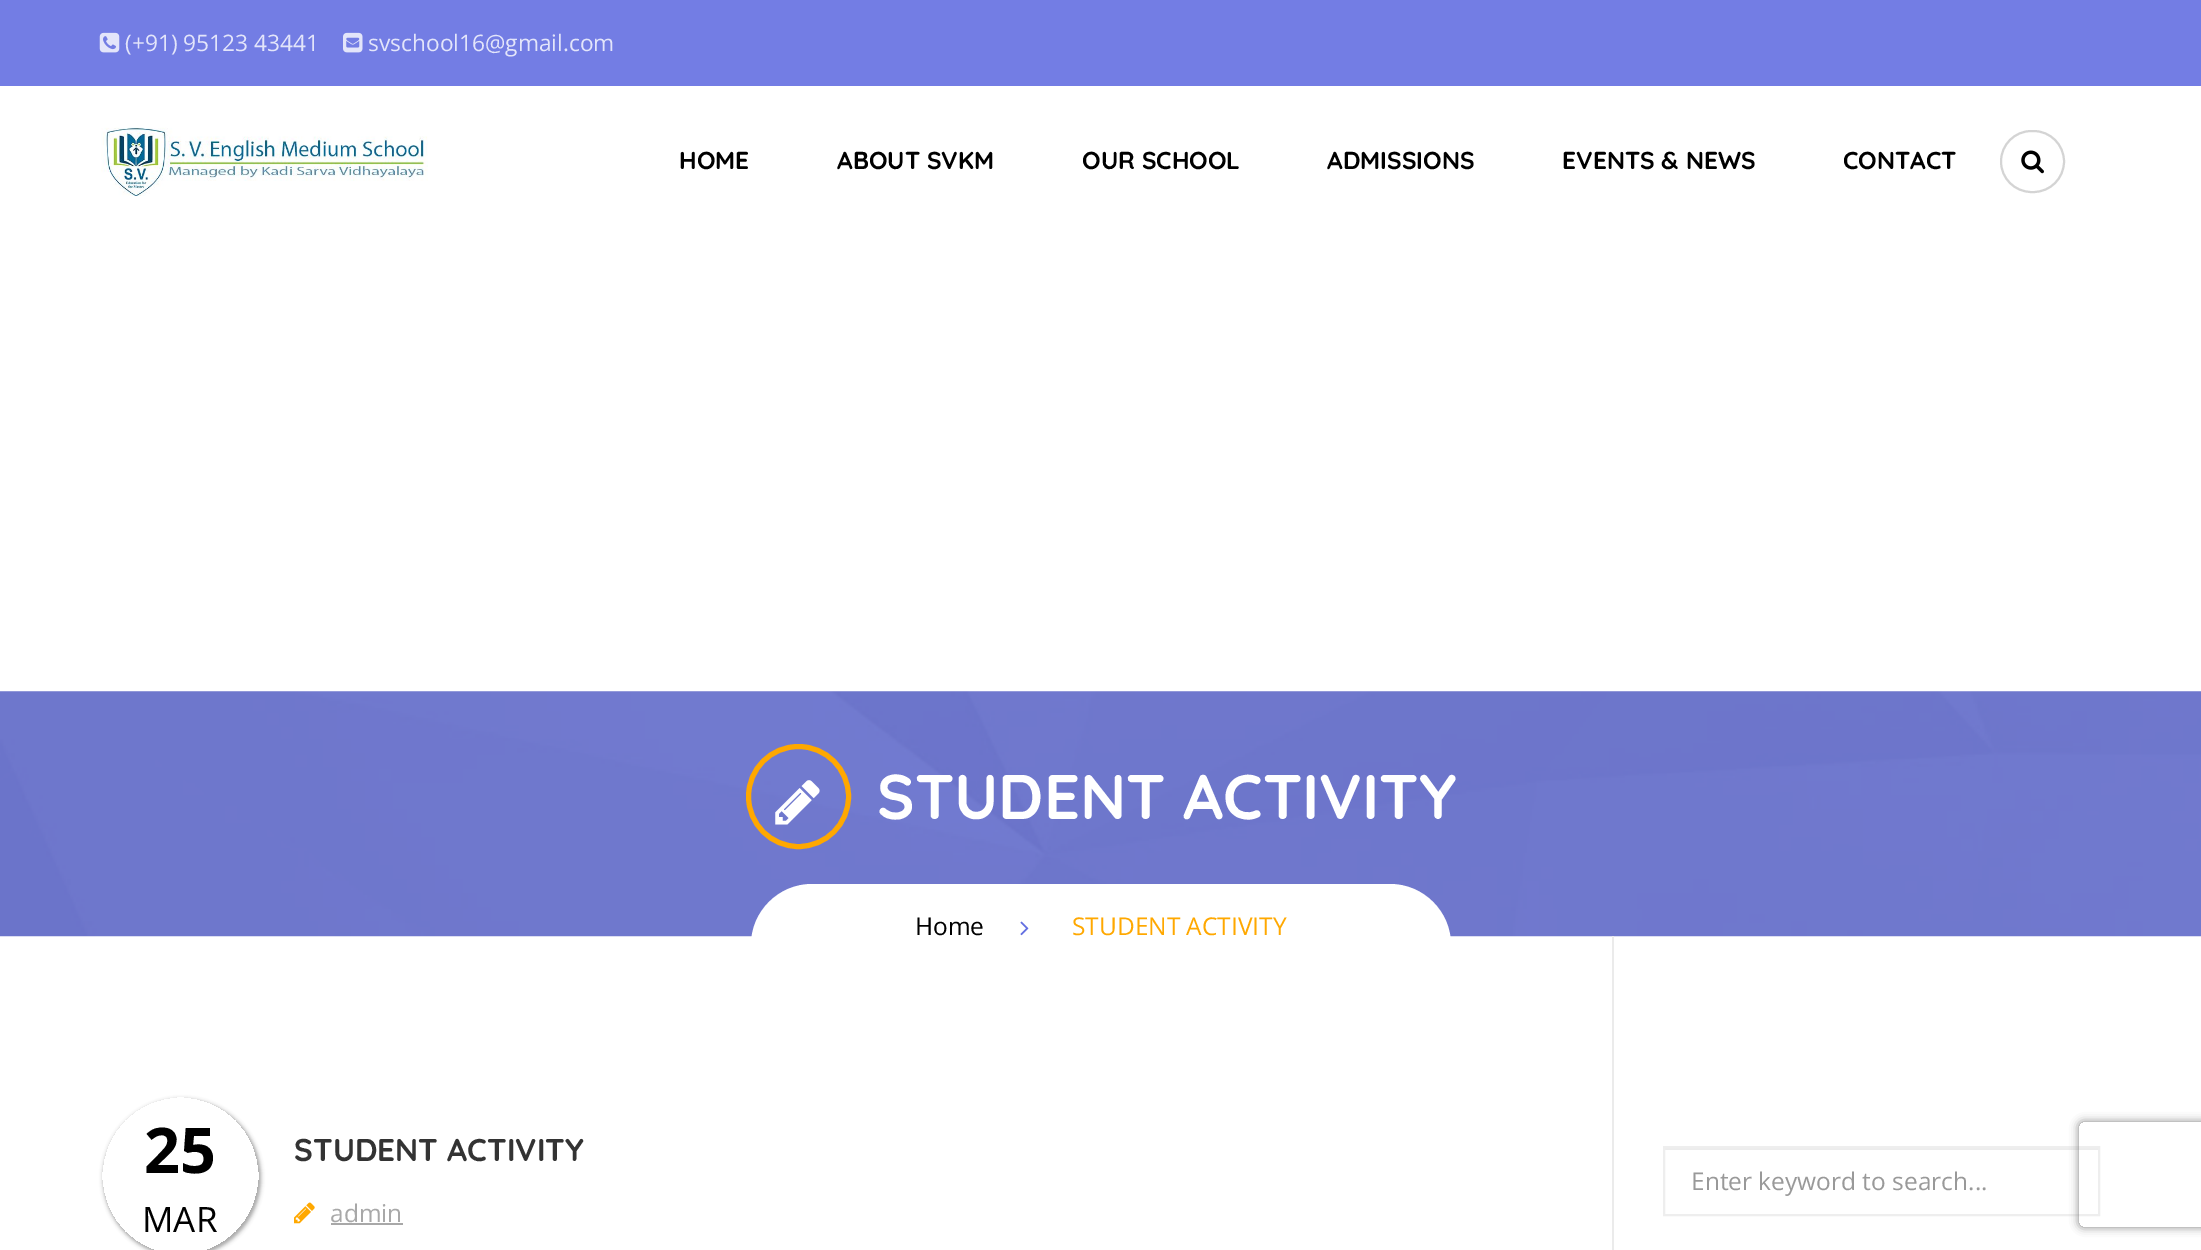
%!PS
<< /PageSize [2201 1250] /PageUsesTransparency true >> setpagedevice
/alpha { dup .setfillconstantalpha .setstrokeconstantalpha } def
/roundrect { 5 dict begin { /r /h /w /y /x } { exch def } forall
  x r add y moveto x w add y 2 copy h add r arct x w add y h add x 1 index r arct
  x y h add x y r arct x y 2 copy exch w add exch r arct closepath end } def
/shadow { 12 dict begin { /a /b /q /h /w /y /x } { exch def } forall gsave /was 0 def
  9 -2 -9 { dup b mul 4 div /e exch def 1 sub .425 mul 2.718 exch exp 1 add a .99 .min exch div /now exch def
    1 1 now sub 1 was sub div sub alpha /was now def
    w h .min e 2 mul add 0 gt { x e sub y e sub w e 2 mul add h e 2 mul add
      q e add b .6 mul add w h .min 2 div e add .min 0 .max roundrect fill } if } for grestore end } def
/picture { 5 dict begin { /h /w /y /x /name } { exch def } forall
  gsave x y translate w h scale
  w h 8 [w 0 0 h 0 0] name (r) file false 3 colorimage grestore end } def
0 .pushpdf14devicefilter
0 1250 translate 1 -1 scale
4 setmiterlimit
1 setgray
0 0 2201 1250 rectfill
0.451 0.49 0.894 setrgbcolor
0 0 2201 86 rectfill
(img1.rgb) 99 32 21 21 picture
/OpenSans-Regular [22.75 0 0 -22.75 0 0] selectfont
0.89 0.898 0.98 setrgbcolor
125 51 moveto (\(+91\) 95123 43441) show
(img2.rgb) 343 32 20 21 picture
368 51 moveto (svschool16@gmail.com) show
(img3.rgb) 101 127 327 69 picture
/Quicksand-Bold [24.5 0 0 -24.5 0 0] selectfont
0 setgray
679 169 moveto (HOME) show
837 169 moveto (ABOUT SVKM) show
1082 169 moveto (OUR SCHOOL) show
1327 169 moveto (ADMISSIONS) show
1562 169 moveto (EVENTS & NEWS) show
1843 169 moveto (CONTACT) show
0.831 setgray
2 setlinewidth
2001 131 63 61 30.5 roundrect stroke
(img4.rgb) 2021 150 23 24 picture
(img5.rgb) 0 691 2201 246 picture
1 0.659 0 setrgbcolor
5 setlinewidth
newpath 798.5 796.5 50 0 360 arc closepath stroke
(img6.rgb) 775 780 45 45 picture
/Quicksand-Bold [63 0 0 -63 0 0] selectfont
1 setgray
877 819 moveto (STUDENT ACTIVITY) show
newpath 812 884 moveto 1390 884 lineto 1423.5 884 1451 911.5 1451 945 curveto 1451 971 lineto 751 971 lineto 751 945 lineto 751 911.5 778.5 884 812 884 curveto closepath fill
/OpenSans-Regular [24.5 0 0 -24.5 0 0] selectfont
0 setgray
915 935 moveto (Home) show
(img7.rgb) 1020 921 9 15 picture
1 0.659 0 setrgbcolor
1072 935 moveto (STUDENT ACTIVITY) show
0.922 setgray
1612 936 2 314 rectfill
gsave
newpath 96 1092 moveto 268 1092 lineto 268 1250 lineto 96 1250 lineto closepath 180.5 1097 moveto 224 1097 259 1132 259 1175.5 curveto 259 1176.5 lineto 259 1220 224 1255 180.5 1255 curveto 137 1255 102 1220 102 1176.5 curveto 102 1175.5 lineto 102 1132 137 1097 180.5 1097 curveto closepath eoclip newpath
0.659 setgray
103 1099 158 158 79 2 1 shadow
grestore
/OpenSans-Bold [63 0 0 -63 0 0] selectfont
0 setgray
144 1173 moveto (25) show
/OpenSans-Regular [35 0 0 -35 0 0] selectfont
142 1232 moveto (MAR) show
/Quicksand-Bold [31.5 0 0 -31.5 0 0] selectfont
0.2 setgray
294 1161 moveto (STUDENT ACTIVITY) show
(img8.rgb) 294 1202 21 22 picture
/OpenSans-Regular [24.5 0 0 -24.5 0 0] selectfont
0.659 setgray
330 1222 moveto (admin) show
331 1223 72 2 rectfill
0.925 setgray
1664 1148 434 2 rectfill
0.933 setgray
2 setlinewidth
1664 1147 435 68 rectstroke
0.6 setgray
1691 1190 moveto (Enter keyword to search...) show
gsave
newpath 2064 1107 moveto 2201 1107 lineto 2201 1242 lineto 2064 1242 lineto closepath 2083 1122 moveto 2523 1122 lineto 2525 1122 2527 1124 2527 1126 curveto 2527 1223 lineto 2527 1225 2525 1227 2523 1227 curveto 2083 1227 lineto 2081 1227 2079 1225 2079 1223 curveto 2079 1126 lineto 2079 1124 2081 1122 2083 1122 curveto closepath eoclip newpath
0.502 setgray
2079 1122 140 105 4 4.5 1 shadow
grestore
.poppdf14devicefilter showpage
